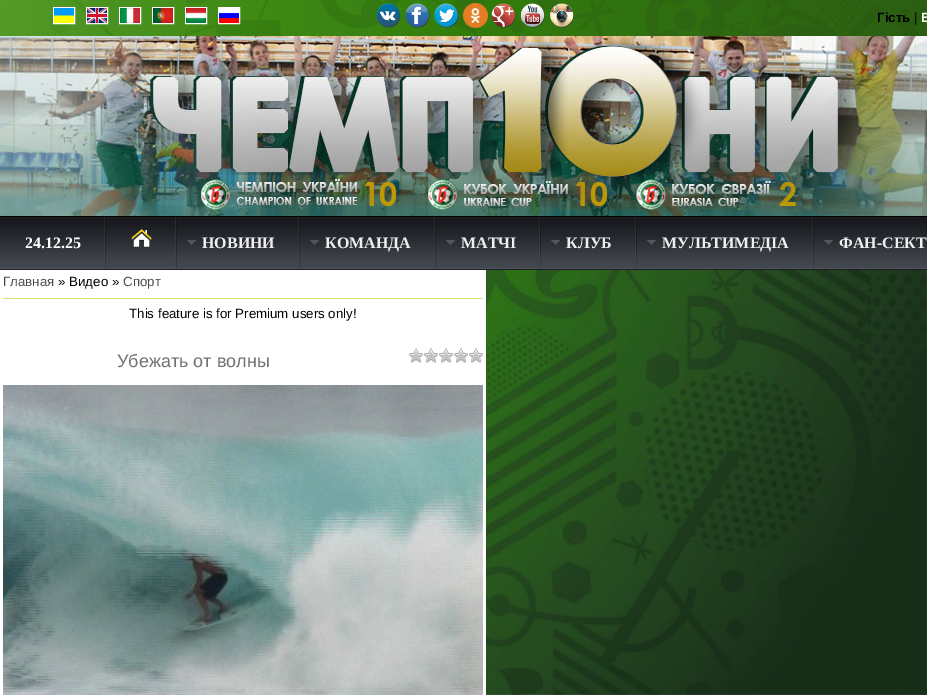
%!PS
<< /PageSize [927 695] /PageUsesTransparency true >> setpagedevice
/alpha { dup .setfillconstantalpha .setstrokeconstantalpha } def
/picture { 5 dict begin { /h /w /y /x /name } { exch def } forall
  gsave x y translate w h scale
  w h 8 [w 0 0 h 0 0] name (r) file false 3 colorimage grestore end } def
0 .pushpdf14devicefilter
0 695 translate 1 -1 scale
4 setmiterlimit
1 setgray
0 0 927 695 rectfill
(img1.rgb) 486 0 441 695 picture
(img2.rgb) 0 0 927 695 picture
0.56 alpha
0.204 0.475 0.027 setrgbcolor
0 0 927 36 rectfill
1 alpha
1 setgray
53.5 7.5 21 16 rectstroke
86.5 7.5 21 16 rectstroke
119.5 7.5 21 16 rectstroke
152.5 7.5 21 16 rectstroke
185.5 7.5 21 16 rectstroke
218.5 7.5 21 16 rectstroke
(img3.rgb) 54 8 20 15 picture
(img4.rgb) 87 8 20 15 picture
(img5.rgb) 120 8 20 15 picture
(img6.rgb) 153 8 20 15 picture
(img7.rgb) 186 8 20 15 picture
(img8.rgb) 219 8 20 15 picture
(img9.rgb) 376 3 24 25 picture
(img10.rgb) 405 3 25 25 picture
(img11.rgb) 434 3 24 25 picture
(img12.rgb) 463 3 25 25 picture
(img13.rgb) 491 3 25 25 picture
(img14.rgb) 521 3 24 25 picture
(img15.rgb) 550 3 24 25 picture
/LiberationSans-Bold [13.3 0 0 -13.3 0 0] selectfont
0 setgray
877 22 moveto (Гість) show
/LiberationSans-Regular [13.3 0 0 -13.3 0 0] selectfont
914 22 moveto (|) show
/LiberationSans-Bold [13.3 0 0 -13.3 0 0] selectfont
1 setgray
921 22 moveto (В) show
(img16.rgb) 0 36 927 180 picture
(img17.rgb) 0 216 927 54 picture
(img18.rgb) 104 218 2 51 picture
/LiberationSerif-Bold [16 0 0 -16 0 0] selectfont
25 248 moveto (24.12.25) show
(img18.rgb) 175 218 2 51 picture
(img19.rgb) 131 229 21 19 picture
(img20.rgb) 187 240 9 5 picture
(img18.rgb) 298 218 2 51 picture
0.937 setgray
202 248 moveto (НОВИНИ) show
(img20.rgb) 310 240 9 5 picture
(img18.rgb) 434 218 2 51 picture
325 248 moveto (КОМАНДА) show
(img21.rgb) 446 240 9 5 picture
(img18.rgb) 539 218 2 51 picture
461 248 moveto (МАТЧІ) show
(img20.rgb) 551 240 9 5 picture
(img18.rgb) 635 218 2 51 picture
566 248 moveto (КЛУБ) show
(img21.rgb) 647 240 9 5 picture
(img18.rgb) 812 218 2 51 picture
662 248 moveto (МУЛЬТИМЕДІА) show
(img20.rgb) 824 240 9 5 picture
839 248 moveto (ФАН-СЕКТ) show
1 setgray
0 270 486 425 rectfill
/LiberationSans-Regular [13.3 0 0 -13.3 0 0] selectfont
0.294 0.278 0.267 setrgbcolor
3 286 moveto (Главная) show
0 setgray
58 286 moveto (» Видео ») show
0.294 0.278 0.267 setrgbcolor
123 286 moveto (Спорт) show
0.839 0.89 0.49 setrgbcolor
3 298 480 1 rectfill
0 setgray
129 318 moveto (This feature is for Premium users only!) show
/LiberationSans-Regular [18 0 0 -18 0 0] selectfont
0.447 setgray
117 367 moveto (Убежать от волны) show
(img22.rgb) 409 348 74 15 picture
(img23.rgb) 3 385 480 310 picture
.poppdf14devicefilter showpage
